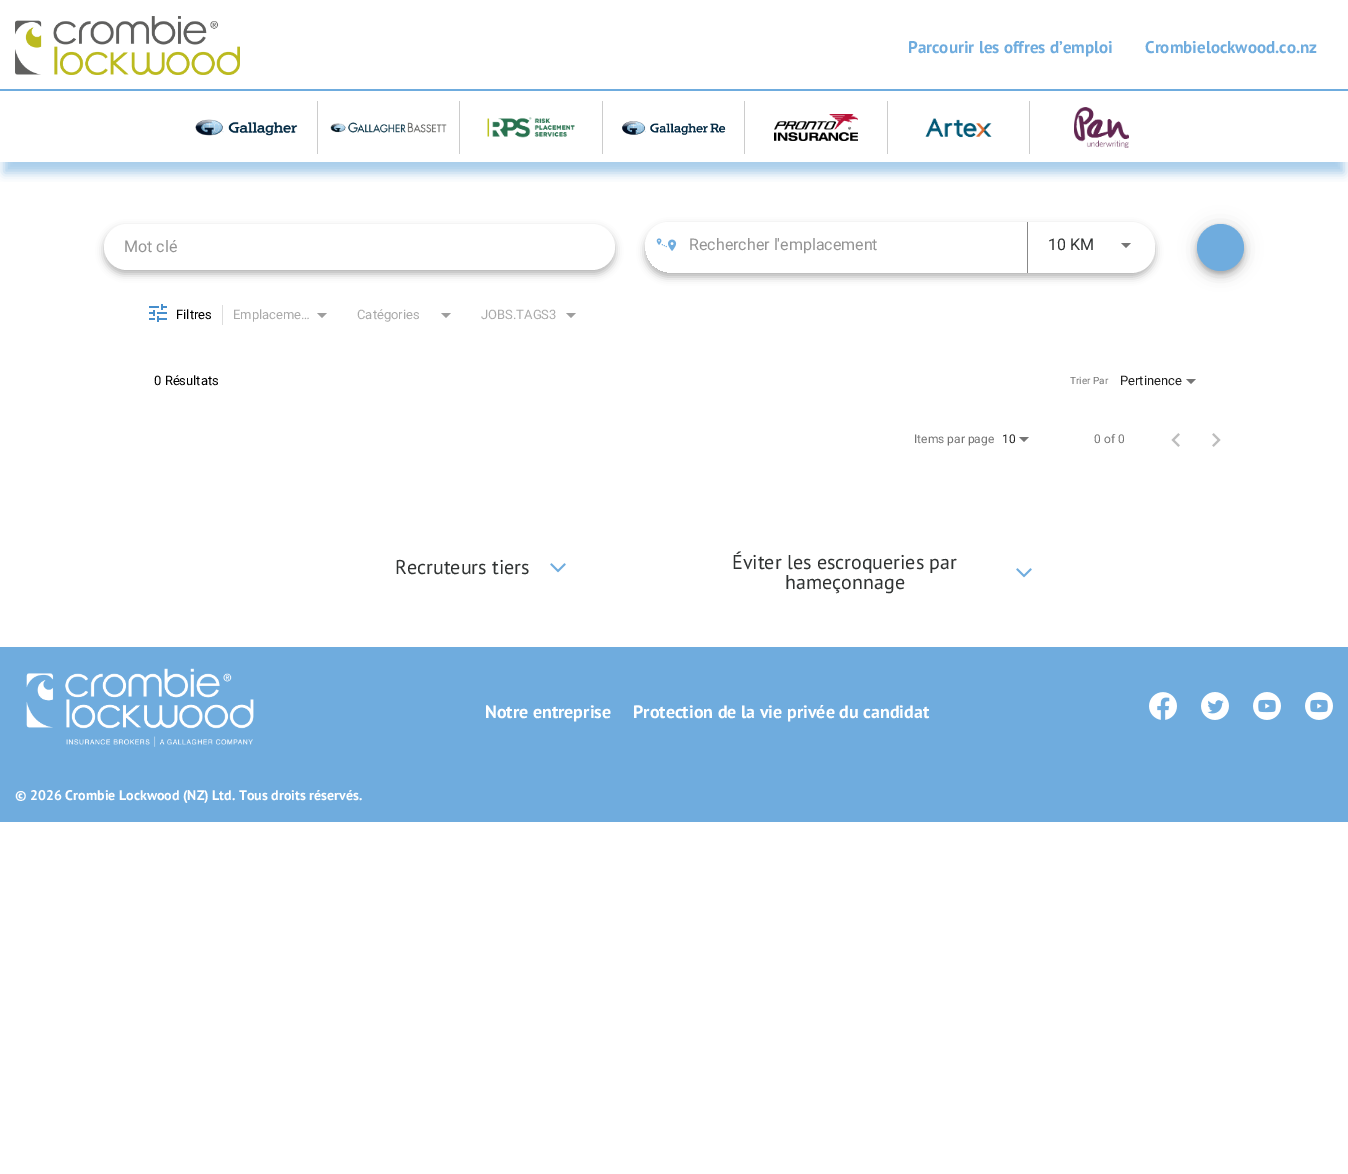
%!PS
<< /PageSize [1348 1174] /PageUsesTransparency true >> setpagedevice
/alpha { dup .setfillconstantalpha .setstrokeconstantalpha } def
/roundrect { 5 dict begin { /r /h /w /y /x } { exch def } forall
  x r add y moveto x w add y 2 copy h add r arct x w add y h add x 1 index r arct
  x y h add x y r arct x y 2 copy exch w add exch r arct closepath end } def
/shadow { 12 dict begin { /a /b /q /h /w /y /x } { exch def } forall gsave /was 0 def
  9 -2 -9 { dup b mul 4 div /e exch def 1 sub .425 mul 2.718 exch exp 1 add a .99 .min exch div /now exch def
    1 1 now sub 1 was sub div sub alpha /was now def
    w h .min e 2 mul add 0 gt { x e sub y e sub w e 2 mul add h e 2 mul add
      q e add b .6 mul add w h .min 2 div e add .min 0 .max roundrect fill } if } for grestore end } def
/picture { 5 dict begin { /h /w /y /x /name } { exch def } forall
  gsave x y translate w h scale
  w h 8 [w 0 0 h 0 0] name (r) file false 3 colorimage grestore end } def
0 .pushpdf14devicefilter
0 1174 translate 1 -1 scale
4 setmiterlimit
1 setgray
0 0 1348 1174 rectfill
gsave
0 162 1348 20 rectclip
0.435 0.675 0.871 setrgbcolor
4 19 1340 154 0 5 0.6 shadow
grestore
0.435 0.675 0.871 setrgbcolor
0 89 1348 2 rectfill
(img1.rgb) 15 16 225 59 picture
/PTSans-Bold [17 0 0 -17 0 0] selectfont
908 53 moveto (Parcourir les offres d’emploi) show
1145 53 moveto (Crombielockwood.co.nz) show
0.8 setgray
317 101 1 53 rectfill
(img2.rgb) 195 119 103 17 picture
459 101 1 53 rectfill
(img3.rgb) 330 122 117 11 picture
602 101 1 53 rectfill
(img4.rgb) 487 117 88 21 picture
744 101 1 53 rectfill
(img5.rgb) 622 121 104 14 picture
887 101 1 53 rectfill
(img6.rgb) 774 114 84 27 picture
1029 101 1 53 rectfill
(img7.rgb) 925 118 67 20 picture
(img8.rgb) 1074 107 55 41 picture
0 setgray
104 228 511 46 23 4 0.3 shadow
1 setgray
104 224 511 46 23 roundrect fill
/Roboto-Regular [16 0 0 -16 0 0] selectfont
0.58 setgray
124 252 moveto (Mot clé) show
gsave
newpath 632 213 moveto 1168 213 lineto 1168 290 lineto 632 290 lineto closepath 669 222 moveto 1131 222 lineto 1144.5 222 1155 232.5 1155 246 curveto 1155 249 lineto 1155 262.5 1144.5 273 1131 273 curveto 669 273 lineto 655.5 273 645 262.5 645 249 curveto 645 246 lineto 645 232.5 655.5 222 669 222 curveto closepath eoclip newpath
0 setgray
645 226 510 51 24 4 0.3 shadow
grestore
1 setgray
newpath 668 222 moveto 1019 222 lineto 1019 268 lineto 668 268 lineto 655.5 268 645 257.5 645 245 curveto 645 232.5 655.5 222 668 222 curveto closepath fill
(img9.rgb) 656 238 21 13 picture
0.58 setgray
689 250 moveto (Rechercher l'emplacement) show
1 setgray
newpath 1027 222 moveto 1131 222 lineto 1144.5 222 1155 232.5 1155 246 curveto 1155 249 lineto 1155 262.5 1144.5 273 1131 273 curveto 1027 273 lineto closepath fill
0.533 setgray
1027 222 1 51 rectfill
0.188 0.2 0.2 setrgbcolor
1048 250 moveto (10 KM) show
0.459 setgray
newpath 1121 243 moveto 1131 243 lineto 1126 248 lineto closepath fill
0 setgray
1197 225 47 47 23.5 9 0.12 shadow
1197 230 47 47 23.5 5 0.14 shadow
1198 228 45 45 22.5 2.5 0.2 shadow
0.435 0.675 0.871 setrgbcolor
newpath 1220.5 247.5 23.5 0 360 arc closepath fill
(img10.rgb) 149 304 18 18 picture
0.867 setgray
222 305 1 20 rectfill
/Roboto-Regular [13 0 0 -13 0 0] selectfont
0 setgray
176 319 moveto (Filtres) show
0.667 setgray
233 319 moveto (Emplaceme…) show
0.62 setgray
newpath 317 313 moveto 327 313 lineto 322 318 lineto closepath fill
0.667 setgray
357 319 moveto (Catégories) show
0.62 setgray
newpath 441 313 moveto 451 313 lineto 446 318 lineto closepath fill
0.667 setgray
481 319 moveto (JOBS.TAGS3) show
0.62 setgray
newpath 566 313 moveto 576 313 lineto 571 318 lineto closepath fill
0 setgray
154 385 moveto (0 Résultats) show
/Roboto-Regular [10 0 0 -10 0 0] selectfont
0.459 setgray
1070 384 moveto (Trier Par) show
/Roboto-Regular [13 0 0 -13 0 0] selectfont
0.129 setgray
1120 385 moveto (Pertinence) show
0.459 setgray
newpath 1186 379 moveto 1196 379 lineto 1191 384 lineto closepath fill
/Roboto-Regular [12 0 0 -12 0 0] selectfont
914 443 moveto (Items par page) show
0.129 setgray
1002 443 moveto (10) show
0.459 setgray
newpath 1019 437 moveto 1029 437 lineto 1024 442 lineto closepath fill
1094 443 moveto (0 of 0) show
(img11.rgb) 1171 433 9 14 picture
(img12.rgb) 1212 433 9 14 picture
/PTSans-Regular [20 0 0 -20 0 0] selectfont
0.188 0.2 0.2 setrgbcolor
395 574 moveto (Recruteurs tiers) show
(img13.rgb) 550 563 16 10 picture
732 569 moveto (Éviter les escroqueries par) show
785 589 moveto (hameçonnage) show
(img13.rgb) 1016 568 16 10 picture
0.435 0.675 0.871 setrgbcolor
0 647 1348 175 rectfill
(img14.rgb) 26 668 228 79 picture
/PTSans-Bold [18 0 0 -18 0 0] selectfont
1 setgray
485 718 moveto (Notre entreprise) show
633 718 moveto (Protection de la vie privée du candidat) show
(img15.rgb) 1149 692 28 28 picture
(img16.rgb) 1201 692 28 28 picture
(img17.rgb) 1253 692 28 28 picture
(img17.rgb) 1305 692 28 28 picture
/PTSans-Bold [14 0 0 -14 0 0] selectfont
15 800 moveto (© 2026 Crombie Lockwood \(NZ\) Ltd. Tous droits réservés.) show
.poppdf14devicefilter showpage
